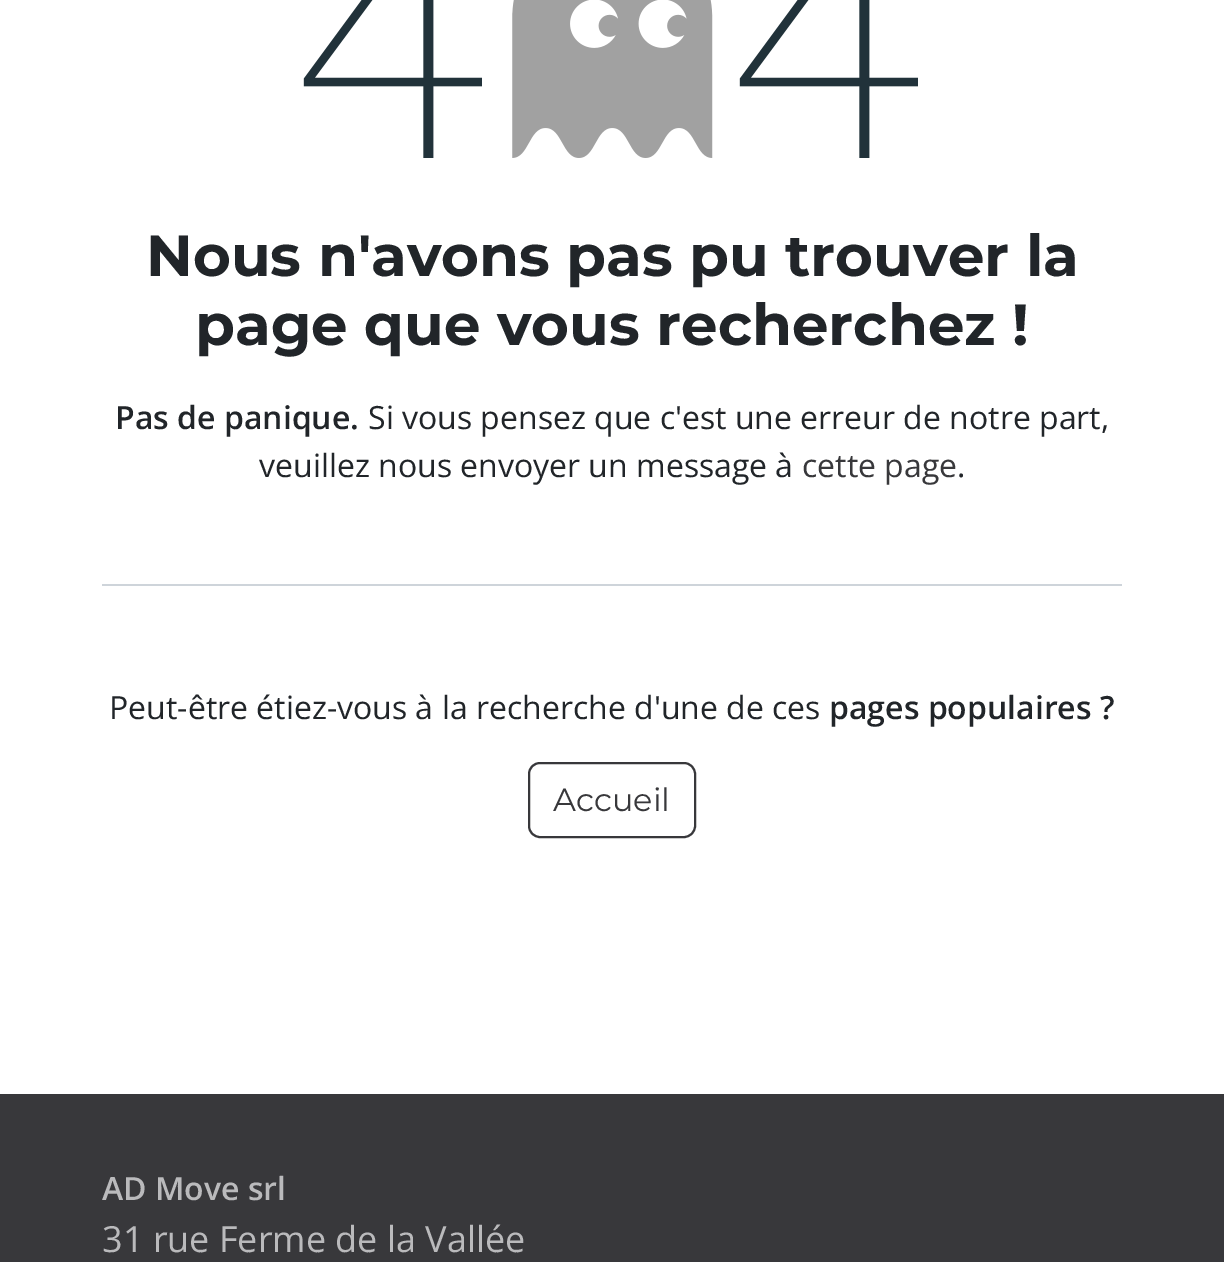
%!PS
<< /PageSize [1224 1262] >> setpagedevice
/roundrect { 5 dict begin { /r /h /w /y /x } { exch def } forall
  x r add y moveto x w add y 2 copy h add r arct x w add y h add x 1 index r arct
  x y h add x y r arct x y 2 copy exch w add exch r arct closepath end } def
/picture { 5 dict begin { /h /w /y /x /name } { exch def } forall
  gsave x y translate w h scale
  w h 8 [w 0 0 h 0 0] name (r) file false 3 colorimage grestore end } def
0 1262 translate 1 -1 scale
4 setmiterlimit
1 setgray
0 0 1224 1262 rectfill
(img1.rgb) 303 0 615 158 picture
/Montserrat-Bold [57.9 0 0 -57.9 0 0] selectfont
0.129 0.145 0.161 setrgbcolor
146 276 moveto (Nous n'avons pas pu trouver la) show
195 345 moveto (page que vous recherchez !) show
/OpenSans-SemiBold [32 0 0 -32 0 0] selectfont
115 429 moveto (Pas de panique.) show
/OpenSans-Regular [32 0 0 -32 0 0] selectfont
368 429 moveto (Si vous pensez que c'est une erreur de notre part,) show
259 477 moveto (veuillez nous envoyer un message à) show
0.22 0.22 0.231 setrgbcolor
802 477 moveto (cette page) show
0.129 0.145 0.161 setrgbcolor
957 477 moveto (.) show
0.808 0.831 0.855 setrgbcolor
102 584 1020 2 rectfill
0.129 0.145 0.161 setrgbcolor
109 719 moveto (Peut-être étiez-vous à la recherche d'une de ces) show
/OpenSans-SemiBold [32 0 0 -32 0 0] selectfont
829 719 moveto (pages populaires ?) show
0.22 0.22 0.231 setrgbcolor
2 setlinewidth
529 763 166 74 11 roundrect stroke
/Montserrat-Regular [32 0 0 -32 0 0] selectfont
553 811 moveto (Accueil) show
0 1094 1224 168 rectfill
/OpenSans-SemiBold [32 0 0 -32 0 0] selectfont
0.729 0.729 0.737 setrgbcolor
102 1200 moveto (AD Move srl) show
/OpenSans-Regular [36 0 0 -36 0 0] selectfont
102 1252 moveto (31 rue Ferme de la Vallée) show
showpage
